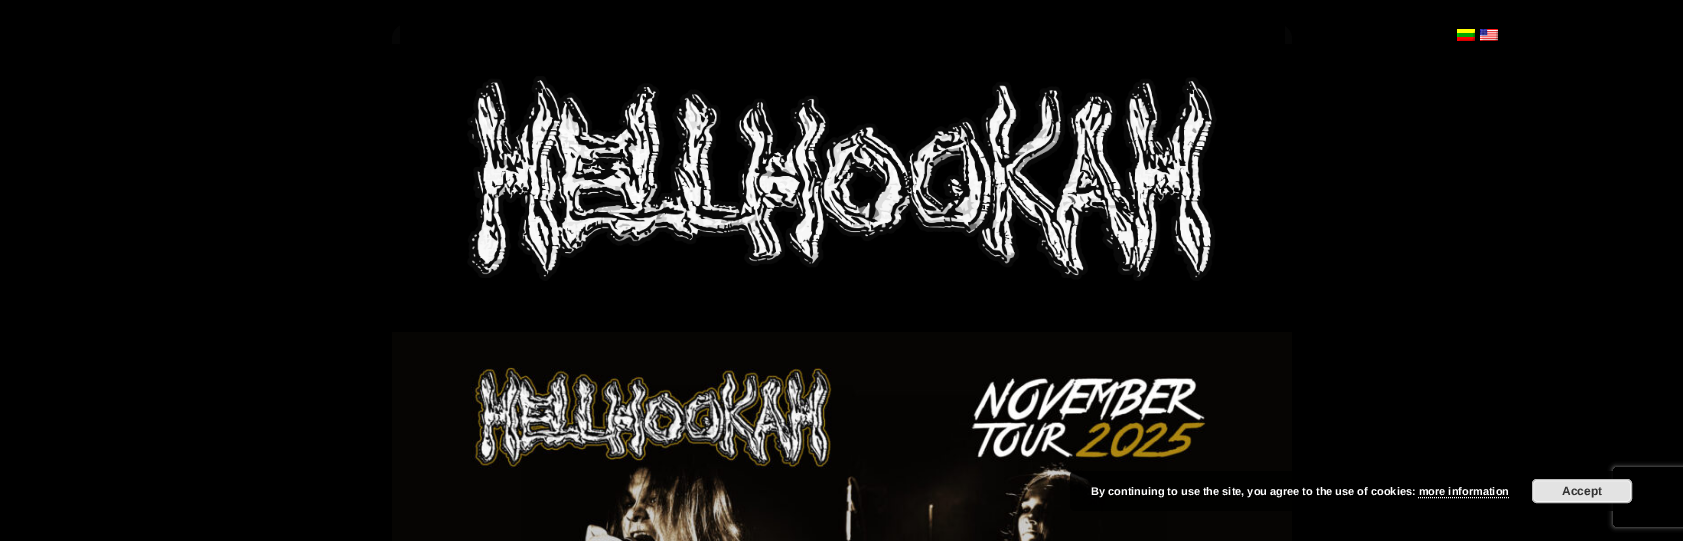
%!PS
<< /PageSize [1683 541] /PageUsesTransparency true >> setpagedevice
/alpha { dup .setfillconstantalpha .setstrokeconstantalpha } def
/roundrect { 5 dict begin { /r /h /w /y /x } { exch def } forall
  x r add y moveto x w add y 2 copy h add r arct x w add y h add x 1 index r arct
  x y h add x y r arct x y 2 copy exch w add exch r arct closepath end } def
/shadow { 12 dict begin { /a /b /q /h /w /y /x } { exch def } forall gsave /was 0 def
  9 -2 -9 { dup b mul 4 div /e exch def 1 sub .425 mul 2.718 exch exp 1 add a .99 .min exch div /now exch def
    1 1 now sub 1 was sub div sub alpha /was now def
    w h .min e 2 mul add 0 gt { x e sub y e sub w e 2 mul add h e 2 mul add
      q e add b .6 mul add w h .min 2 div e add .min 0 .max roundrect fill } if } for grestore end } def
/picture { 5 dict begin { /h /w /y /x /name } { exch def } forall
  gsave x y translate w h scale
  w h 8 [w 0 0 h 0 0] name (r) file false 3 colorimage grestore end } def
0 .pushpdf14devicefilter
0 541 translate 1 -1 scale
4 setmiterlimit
0 setgray
0 0 1683 541 rectfill
0.02 setgray
392 24 900 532 15 roundrect fill
0 setgray
400 24 885 20 rectfill
392 44 900 288 rectfill
(img1.rgb) 467 76 750 205 picture
(img2.rgb) 392 332 900 209 picture
(img3.rgb) 1457 29 18 12 picture
(img4.rgb) 1480 29 18 12 picture
gsave
newpath 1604 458 moveto 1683 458 lineto 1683 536 lineto 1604 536 lineto closepath 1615 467 moveto 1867 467 lineto 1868 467 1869 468 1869 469 curveto 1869 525 lineto 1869 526 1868 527 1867 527 curveto 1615 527 lineto 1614 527 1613 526 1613 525 curveto 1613 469 lineto 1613 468 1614 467 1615 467 curveto closepath eoclip newpath
0.502 setgray
1613 467 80 60 2 2.5 1 shadow
grestore
0.85 alpha
1070 471 583 40 5 roundrect fill
/LiberationSans-Bold [11 0 0 -11 0 0] selectfont
1 alpha
1 setgray
1091 495 moveto (By continuing to use the site, you agree to the use of cookies: more information) show
0.89 setgray
1532 479 100 24 5 roundrect fill
0.965 setgray
1533.5 480.5 97 21 3.5 roundrect stroke
0.733 setgray
1532.5 479.5 99 23 4.5 roundrect stroke
/LiberationSans-Bold [12 0 0 -12 0 0] selectfont
0.2 setgray
1562 495 moveto (Accept) show
1 setgray
[1 1] 0 setdash
newpath 1418 497.5 moveto 1509 497.5 lineto stroke
.poppdf14devicefilter showpage
